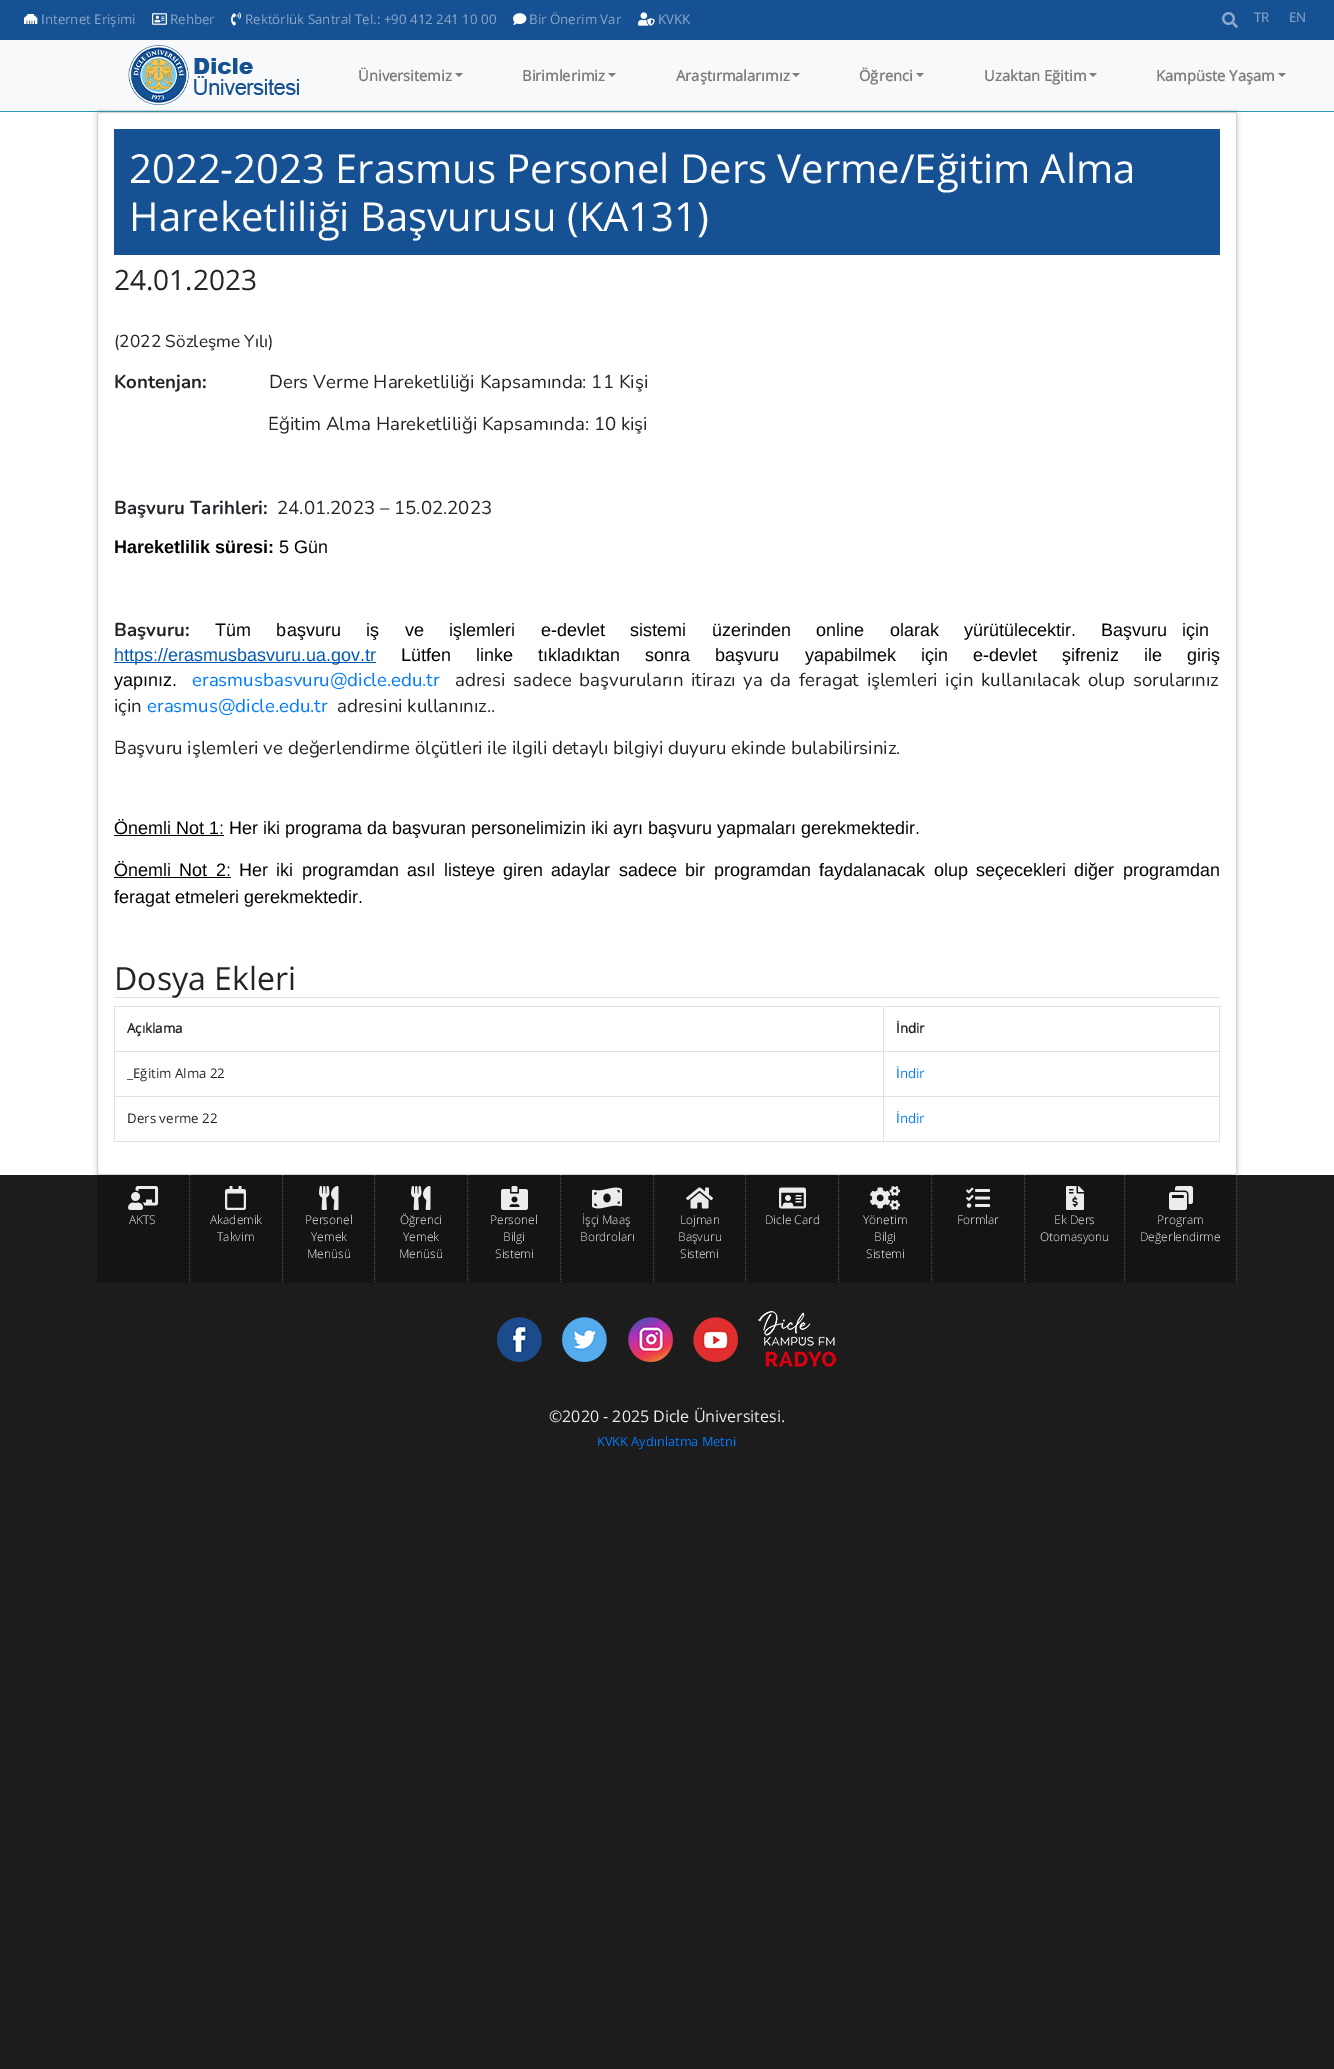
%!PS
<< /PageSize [1334 2069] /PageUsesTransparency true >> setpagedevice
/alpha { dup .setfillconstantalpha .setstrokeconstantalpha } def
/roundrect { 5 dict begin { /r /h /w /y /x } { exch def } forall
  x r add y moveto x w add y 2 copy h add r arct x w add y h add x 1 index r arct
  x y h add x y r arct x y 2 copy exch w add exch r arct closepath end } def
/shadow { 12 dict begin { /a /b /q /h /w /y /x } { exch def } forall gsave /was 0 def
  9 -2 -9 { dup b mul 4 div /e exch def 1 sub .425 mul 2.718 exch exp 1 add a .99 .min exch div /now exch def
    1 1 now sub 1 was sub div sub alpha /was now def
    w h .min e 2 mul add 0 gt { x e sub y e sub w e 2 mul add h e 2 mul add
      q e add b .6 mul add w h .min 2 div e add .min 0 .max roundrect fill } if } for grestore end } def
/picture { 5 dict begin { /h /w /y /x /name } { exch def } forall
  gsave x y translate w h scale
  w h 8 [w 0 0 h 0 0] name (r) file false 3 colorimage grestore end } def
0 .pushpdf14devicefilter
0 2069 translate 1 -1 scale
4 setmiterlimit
0.11 setgray
0 0 1334 2069 rectfill
0.973 0.976 0.98 setrgbcolor
0 40 1334 71 rectfill
0.176 0.6 0.694 setrgbcolor
0 111 1334 1 rectfill
0.086 0.318 0.576 setrgbcolor
0 0 1334 40 rectfill
(img1.rgb) 24 14 14 10 picture
/OpenSans-Regular [13.3 0 0 -13.3 0 0] selectfont
0.545 0.659 0.788 setrgbcolor
41 24 moveto (Internet Erişimi) show
(img2.rgb) 152 13 15 12 picture
170 24 moveto (Rehber) show
(img3.rgb) 231 12 10 14 picture
245 24 moveto (Rektörlük Santral Tel.: +90 412 241 10 00) show
(img4.rgb) 513 13 14 12 picture
529 24 moveto (Bir Önerim Var) show
(img5.rgb) 638 12 17 14 picture
658 24 moveto (KVKK) show
(img6.rgb) 1222 12 16 16 picture
1254 22 moveto (TR) show
1289 22 moveto (EN) show
0.871 0.886 0.902 setrgbcolor
97 110 1140 1 rectfill
1 setgray
0 112 1334 1063 rectfill
0 setgray
97 113 1140 1063 2 3 0.18 shadow
0.973 0.976 0.98 setrgbcolor
112 108 1110 2 rectfill
(img7.rgb) 128 45 171 60 picture
/OpenSans-Bold [14.75 0 0 -14.75 0 0] selectfont
0.486 0.49 0.49 setrgbcolor
358 81 moveto (Üniversitemiz) show
newpath 455 73 moveto 463 73 lineto 459 77 lineto closepath fill
522 81 moveto (Birimlerimiz) show
newpath 608 73 moveto 616 73 lineto 612 77 lineto closepath fill
676 81 moveto (Araştırmalarımız) show
newpath 792 73 moveto 800 73 lineto 796 77 lineto closepath fill
859 81 moveto (Öğrenci) show
newpath 916 73 moveto 924 73 lineto 920 77 lineto closepath fill
984 81 moveto (Uzaktan Eğitim) show
newpath 1089 73 moveto 1097 73 lineto 1093 77 lineto closepath fill
1156 81 moveto (Kampüste Yaşam) show
newpath 1278 73 moveto 1286 73 lineto 1282 77 lineto closepath fill
1 setgray
97.5 112.5 1139 1062 1.5 roundrect gsave fill grestore
0.839 setgray
stroke
0.086 0.318 0.576 setrgbcolor
114 129 1106 126 rectfill
/OpenSans-Regular [40 0 0 -40 0 0] selectfont
1 setgray
129 183 moveto (2022-2023 Erasmus Personel Ders Verme/Eğitim Alma) show
129 231 moveto (Hareketliliği Başvurusu \(KA131\)) show
/OpenSans-Regular [28 0 0 -28 0 0] selectfont
0.129 0.145 0.161 setrgbcolor
114 290 moveto (24.01.2023) show
/Nunito-Regular [17.25 0 0 -17.25 0 0] selectfont
114 347 moveto (\(2022 Sözleşme Yılı\)) show
/Nunito-Bold [18.65 0 0 -18.65 0 0] selectfont
114 388 moveto (Kontenjan:) show
/Nunito-Regular [18.65 0 0 -18.65 0 0] selectfont
269 388 moveto (Ders Verme Hareketliliği Kapsamında: 11 Kişi) show
268 430 moveto (Eğitim Alma Hareketliliği Kapsamında: 10 kişi) show
/Nunito-Bold [18.65 0 0 -18.65 0 0] selectfont
114 514 moveto (Başvuru Tarihleri:) show
/Nunito-Regular [18.65 0 0 -18.65 0 0] selectfont
277 514 moveto (24.01.2023 – 15.02.2023) show
/LiberationSans-Bold [18 0 0 -18 0 0] selectfont
0 0 0.004 setrgbcolor
114 553 moveto (Hareketlilik süresi:) show
/LiberationSans-Regular [18 0 0 -18 0 0] selectfont
279 553 moveto (5 Gün) show
/Nunito-Bold [18.65 0 0 -18.65 0 0] selectfont
0.129 0.145 0.161 setrgbcolor
114 636 moveto (Başvuru:) show
/LiberationSans-Regular [18 0 0 -18 0 0] selectfont
0 0 0.004 setrgbcolor
215 636 moveto 20.5 0 32 (Tüm başvuru iş ve işlemleri e-devlet sistemi üzerinden online olarak yürütülecektir.) widthshow
1101 636 moveto 10 0 32 (Başvuru için) widthshow
0 0.337 0.702 setrgbcolor
114 662 262 1 rectfill
114 661 moveto (https://erasmusbasvuru.ua.gov.tr) show
0 0 0.004 setrgbcolor
401 661 moveto 20.1 0 32 (Lütfen linke tıkladıktan sonra başvuru yapabilmek için e-devlet şifreniz ile giriş) widthshow
114 686 moveto (yapınız.) show
/Nunito-Regular [18.65 0 0 -18.65 0 0] selectfont
0 0.482 1 setrgbcolor
192 686 moveto (erasmusbasvuru@dicle.edu.tr) show
0.129 0.145 0.161 setrgbcolor
455 686 moveto 2.9 0 32 (adresi sadece başvuruların itirazı ya da feragat işlemleri için kullanılacak olup sorularınız) widthshow
114 712 moveto (için) show
0 0.482 1 setrgbcolor
147 712 moveto (erasmus@dicle.edu.tr) show
0.129 0.145 0.161 setrgbcolor
337 712 moveto (adresini kullanınız..) show
114 754 moveto (Başvuru işlemleri ve değerlendirme ölçütleri ile ilgili detaylı bilgiyi duyuru ekinde bulabilirsiniz.) show
0 0 0.004 setrgbcolor
114 835 110 1 rectfill
/LiberationSans-Regular [18 0 0 -18 0 0] selectfont
114 834 moveto (Önemli Not 1: Her iki programa da başvuran personelimizin iki ayrı başvuru yapmaları gerekmektedir.) show
114 876 moveto 3.4 0 32 (Önemli Not 2:) widthshow
114 877 117 1 rectfill
239 876 moveto 3.4 0 32 (Her iki programdan asıl listeye giren adaylar sadece bir programdan faydalanacak olup seçecekleri diğer programdan) widthshow
114 903 moveto (feragat etmeleri gerekmektedir.) show
0.871 0.886 0.902 setrgbcolor
114 997 1106 1 rectfill
/OpenSans-Regular [32 0 0 -32 0 0] selectfont
0.129 0.145 0.161 setrgbcolor
114 990 moveto (Dosya Ekleri) show
0.871 0.886 0.902 setrgbcolor
114 1006 1106 1 rectfill
1219 1006 1 136 rectfill
114 1141 1106 1 rectfill
114 1006 1 136 rectfill
/OpenSans-Bold [13.3 0 0 -13.3 0 0] selectfont
0.129 0.145 0.161 setrgbcolor
127 1033 moveto (Açıklama) show
0.871 0.886 0.902 setrgbcolor
883 1051 337 1 rectfill
883 1096 337 1 rectfill
883 1096 1 46 rectfill
114 1096 770 1 rectfill
883 1051 1 46 rectfill
114 1051 770 1 rectfill
883 1006 1 46 rectfill
0.129 0.145 0.161 setrgbcolor
896 1033 moveto (İndir) show
/OpenSans-Regular [13.3 0 0 -13.3 0 0] selectfont
127 1078 moveto (_Eğitim Alma 22) show
0 0.482 1 setrgbcolor
896 1078 moveto (İndir) show
0.129 0.145 0.161 setrgbcolor
127 1123 moveto (Ders verme 22) show
0 0.482 1 setrgbcolor
896 1123 moveto (İndir) show
0.082 0.078 0.078 setrgbcolor
97 1175 1140 108 rectfill
0.302 setgray
[1 1] 0 setdash
newpath 189.5 1175 moveto 189.5 1283 lineto stroke
(img8.rgb) 128 1186 31 24 picture
/OpenSans-Light [12 0 0 -12 0 0] selectfont
0.925 setgray
129 1224 moveto (AKTS) show
0.302 setgray
newpath 282.5 1175 moveto 282.5 1283 lineto stroke
(img9.rgb) 225 1186 21 24 picture
0.925 setgray
210 1224 moveto (Akademik) show
217 1241 moveto (Takvim) show
0.302 setgray
newpath 374.5 1175 moveto 374.5 1283 lineto stroke
(img10.rgb) 319 1186 20 24 picture
0.925 setgray
305 1224 moveto (Personel) show
311 1241 moveto (Yemek) show
307 1258 moveto (Menüsü) show
0.302 setgray
newpath 467.5 1175 moveto 467.5 1283 lineto stroke
(img10.rgb) 411 1186 20 24 picture
0.925 setgray
400 1224 moveto (Öğrenci) show
403 1241 moveto (Yemek) show
399 1258 moveto (Menüsü) show
0.302 setgray
newpath 560.5 1175 moveto 560.5 1283 lineto stroke
(img11.rgb) 501 1186 27 24 picture
0.925 setgray
490 1224 moveto (Personel) show
503 1241 moveto (Bilgi) show
495 1258 moveto (Sistemi) show
0.302 setgray
newpath 653.5 1175 moveto 653.5 1283 lineto stroke
(img12.rgb) 592 1187 30 22 picture
0.925 setgray
582 1224 moveto (İşçi Maaş) show
580 1241 moveto (Bordroları) show
0.302 setgray
newpath 745.5 1175 moveto 745.5 1283 lineto stroke
(img13.rgb) 686 1187 27 22 picture
0.925 setgray
680 1224 moveto (Lojman) show
678 1241 moveto (Başvuru) show
680 1258 moveto (Sistemi) show
0.302 setgray
newpath 838.5 1175 moveto 838.5 1283 lineto stroke
(img14.rgb) 779 1187 27 22 picture
0.925 setgray
765 1224 moveto (Dicle Card) show
0.302 setgray
newpath 931.5 1175 moveto 931.5 1283 lineto stroke
(img15.rgb) 870 1186 30 24 picture
0.925 setgray
863 1224 moveto (Yönetim) show
874 1241 moveto (Bilgi) show
866 1258 moveto (Sistemi) show
0.302 setgray
newpath 1024.5 1175 moveto 1024.5 1283 lineto stroke
(img16.rgb) 966 1187 25 21 picture
0.925 setgray
957 1224 moveto (Formlar) show
0.302 setgray
newpath 1124.5 1175 moveto 1124.5 1283 lineto stroke
(img17.rgb) 1066 1186 18 24 picture
0.925 setgray
1054 1224 moveto (Ek Ders) show
1040 1241 moveto (Otomasyonu) show
0.302 setgray
newpath 1236.5 1175 moveto 1236.5 1283 lineto stroke
(img18.rgb) 1169 1186 24 24 picture
0.925 setgray
1157 1224 moveto (Program) show
1140 1241 moveto (Değerlendirme) show
(img19.rgb) 497 1317 45 45 picture
(img20.rgb) 562 1317 45 45 picture
(img21.rgb) 628 1317 45 45 picture
(img22.rgb) 693 1317 45 45 picture
(img23.rgb) 758 1311 79 56 picture
/OpenSans-Regular [16 0 0 -16 0 0] selectfont
549 1422 moveto (©2020 - 2025 Dicle Üniversitesi.) show
/OpenSans-Regular [12.75 0 0 -12.75 0 0] selectfont
0 0.482 1 setrgbcolor
597 1446 moveto (KVKK Aydınlatma Metni) show
.poppdf14devicefilter showpage
